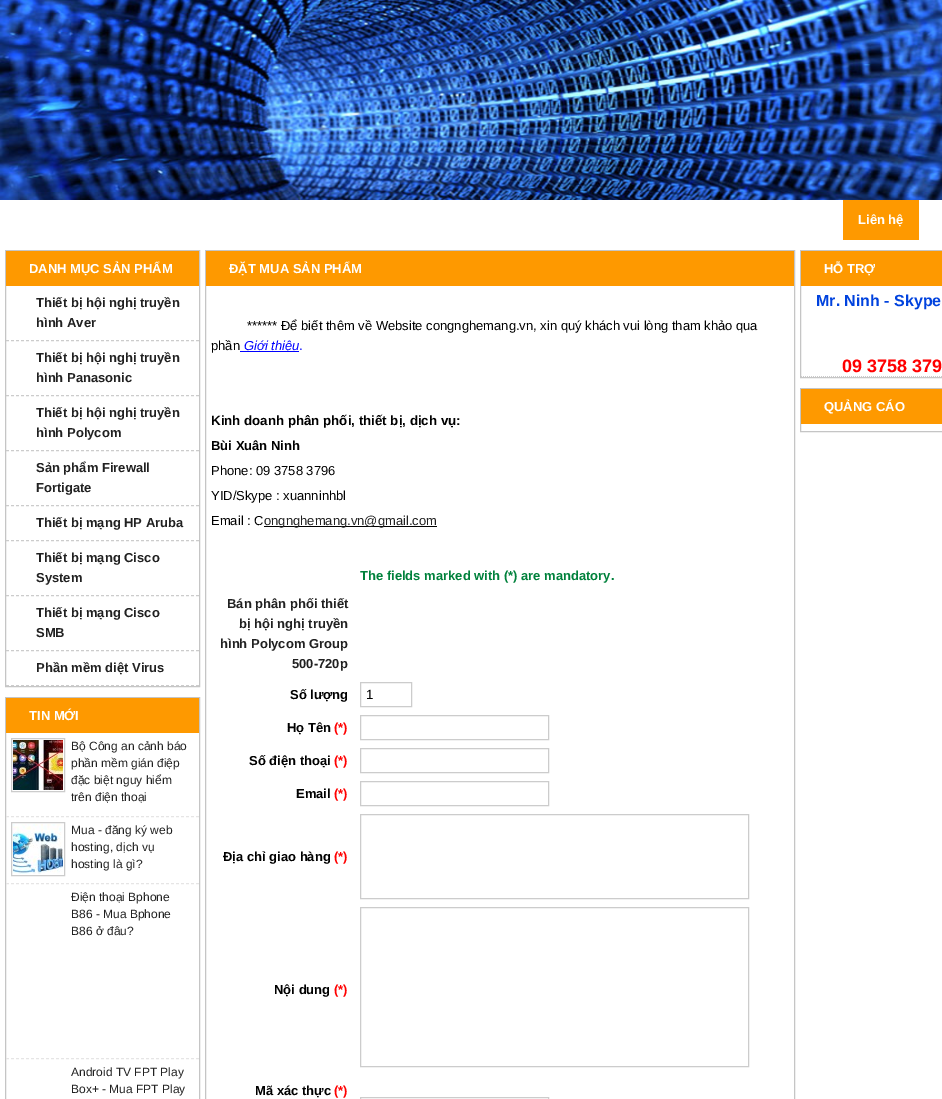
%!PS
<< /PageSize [942 1099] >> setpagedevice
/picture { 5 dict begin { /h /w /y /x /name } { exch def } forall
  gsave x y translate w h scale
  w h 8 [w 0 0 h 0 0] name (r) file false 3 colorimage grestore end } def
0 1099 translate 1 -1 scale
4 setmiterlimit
1 setgray
0 0 942 1099 rectfill
(img1.rgb) 0 0 942 200 picture
0.996 0.6 0 setrgbcolor
843 200 76 40 rectfill
/LiberationSans-Bold [13 0 0 -13 0 0] selectfont
1 setgray
858 224 moveto (Liên hệ) show
0.773 setgray
5.5 250.5 194 436 rectstroke
0.996 0.6 0 setrgbcolor
6 251 193 35 rectfill
1 setgray
29 273 moveto (DANH MỤC SẢN PHẨM) show
0.8 setgray
[3 2] 0 setdash
newpath 6 340.5 moveto 199 340.5 lineto stroke
0.129 setgray
36 307 moveto (Thiết bị hội nghị truyền) show
36 327 moveto (hình Aver) show
0.8 setgray
newpath 6 395.5 moveto 199 395.5 lineto stroke
0.129 setgray
36 362 moveto (Thiết bị hội nghị truyền) show
36 382 moveto (hình Panasonic) show
0.8 setgray
newpath 6 450.5 moveto 199 450.5 lineto stroke
0.129 setgray
36 417 moveto (Thiết bị hội nghị truyền) show
36 437 moveto (hình Polycom) show
0.8 setgray
newpath 6 505.5 moveto 199 505.5 lineto stroke
0.129 setgray
36 472 moveto (Sản phẩm Firewall) show
36 492 moveto (Fortigate) show
0.8 setgray
newpath 6 540.5 moveto 199 540.5 lineto stroke
0.129 setgray
36 527 moveto (Thiết bị mạng HP Aruba) show
0.8 setgray
newpath 6 595.5 moveto 199 595.5 lineto stroke
0.129 setgray
36 562 moveto (Thiết bị mạng Cisco) show
36 582 moveto (System) show
0.8 setgray
newpath 6 650.5 moveto 199 650.5 lineto stroke
0.129 setgray
36 617 moveto (Thiết bị mạng Cisco) show
36 637 moveto (SMB) show
0.8 setgray
newpath 6 685.5 moveto 199 685.5 lineto stroke
0.129 setgray
36 672 moveto (Phần mềm diệt Virus) show
0.773 setgray
[] 0 setdash
5.5 697.5 194 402 rectstroke
0.996 0.6 0 setrgbcolor
6 698 193 35 rectfill
1 setgray
29 720 moveto (TIN MỚI) show
0.902 0.898 0.898 setrgbcolor
[3 2] 0 setdash
newpath 6 816.5 moveto 199 816.5 lineto stroke
0.8 setgray
[] 0 setdash
11.5 738.5 53 53 rectstroke
(img2.rgb) 13 740 50 50 picture
/LiberationSans-Regular [12 0 0 -12 0 0] selectfont
0.129 setgray
71 750 moveto (Bộ Công an cảnh báo) show
71 767 moveto (phần mềm gián điệp) show
71 784 moveto (đặc biệt nguy hiểm) show
71 801 moveto (trên điện thoại) show
0.902 0.898 0.898 setrgbcolor
[3 2] 0 setdash
newpath 6 883.5 moveto 199 883.5 lineto stroke
0.8 setgray
[] 0 setdash
11.5 822.5 53 53 rectstroke
(img3.rgb) 13 824 50 50 picture
0.129 setgray
71 834 moveto (Mua - đăng ký web) show
71 851 moveto (hosting, dịch vụ) show
71 868 moveto (hosting là gì?) show
0.902 0.898 0.898 setrgbcolor
[3 2] 0 setdash
newpath 6 1058.5 moveto 199 1058.5 lineto stroke
0.129 setgray
71 901 moveto (Điện thoại Bphone) show
71 918 moveto (B86 - Mua Bphone) show
71 935 moveto (B86 ở đâu?) show
71 1076 moveto (Android TV FPT Play) show
71 1093 moveto (Box+ - Mua FPT Play) show
0.773 setgray
[] 0 setdash
205.5 250.5 589 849 rectstroke
0.996 0.6 0 setrgbcolor
206 251 588 35 rectfill
/LiberationSans-Bold [13 0 0 -13 0 0] selectfont
1 setgray
229 273 moveto (ĐẶT MUA SẢN PHẨM) show
/LiberationSans-Regular [13 0 0 -13 0 0] selectfont
0 setgray
247 330 moveto (****** Để biết thêm về Website congnghemang.vn, xin quý khách vui lòng tham khảo qua) show
211 350 moveto (phần) show
0 0 1 setrgbcolor
240 351 59 1 rectfill
/LiberationSans-Italic [13 0 0 -13 0 0] selectfont
244 350 moveto (Giới thiệu) show
/LiberationSans-Regular [13 0 0 -13 0 0] selectfont
299 350 moveto (.) show
/LiberationSans-Bold [13.3 0 0 -13.3 0 0] selectfont
0 setgray
211 425 moveto (Kinh doanh phân phối, thiết bị, dịch vụ:) show
/LiberationSans-Bold [13 0 0 -13 0 0] selectfont
211 450 moveto (Bùi Xuân Ninh) show
/LiberationSans-Regular [13 0 0 -13 0 0] selectfont
211 475 moveto (Phone: 09 3758 3796) show
211 500 moveto (YID/Skype : xuanninhbl) show
211 525 moveto (Email : C) show
264 526 173 1 rectfill
0.129 setgray
264 525 moveto (ongnghemang.vn@gmail.com) show
/LiberationSans-Bold [13 0 0 -13 0 0] selectfont
0 0.506 0.231 setrgbcolor
360 580 moveto (The fields marked with \(*\) are mandatory.) show
0.129 setgray
227 608 moveto (Bán phân phối thiết) show
239 628 moveto (bị hội nghị truyền) show
220 648 moveto (hình Polycom Group) show
292 668 moveto (500-720p) show
0 setgray
290 699 moveto (Số lượng) show
0.8 setgray
360.5 682.5 51 24 rectstroke
/LiberationSans-Regular [13.3 0 0 -13.3 0 0] selectfont
0 setgray
366 699 moveto (1) show
/LiberationSans-Bold [13 0 0 -13 0 0] selectfont
287 732 moveto (Họ Tên) show
1 0 0 setrgbcolor
334 732 moveto (\(*\)) show
0.8 setgray
360.5 715.5 188 24 rectstroke
0 setgray
249 765 moveto (Số điện thoại) show
1 0 0 setrgbcolor
334 765 moveto (\(*\)) show
0.8 setgray
360.5 748.5 188 24 rectstroke
0 setgray
296 798 moveto (Email) show
1 0 0 setrgbcolor
334 798 moveto (\(*\)) show
0.8 setgray
360.5 781.5 188 24 rectstroke
0 setgray
223 861 moveto (Địa chỉ giao hàng) show
1 0 0 setrgbcolor
334 861 moveto (\(*\)) show
0.8 setgray
360.5 814.5 388 84 rectstroke
0 setgray
274 994 moveto (Nội dung) show
1 0 0 setrgbcolor
334 994 moveto (\(*\)) show
0.8 setgray
360.5 907.5 388 159 rectstroke
0 setgray
255 1095 moveto (Mã xác thực) show
1 0 0 setrgbcolor
334 1095 moveto (\(*\)) show
0.8 setgray
360.5 1097.5 188 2 rectstroke
0.773 setgray
800.5 250.5 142 127 rectstroke
0.996 0.6 0 setrgbcolor
801 251 141 35 rectfill
1 setgray
824 273 moveto (HỖ TRỢ) show
0.8 setgray
[1 1] 0 setdash
newpath 801 376.5 moveto 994 376.5 lineto stroke
/LiberationSans-Bold [16 0 0 -16 0 0] selectfont
0 0.259 0.871 setrgbcolor
816 306 moveto (Mr. Ninh - Skype) show
/LiberationSans-Bold [18 0 0 -18 0 0] selectfont
1 0 0 setrgbcolor
842 372 moveto (09 3758 379) show
0.773 setgray
[] 0 setdash
800.5 388.5 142 43 rectstroke
0.996 0.6 0 setrgbcolor
801 389 141 35 rectfill
/LiberationSans-Bold [13 0 0 -13 0 0] selectfont
1 setgray
824 411 moveto (QUẢNG CÁO) show
showpage
